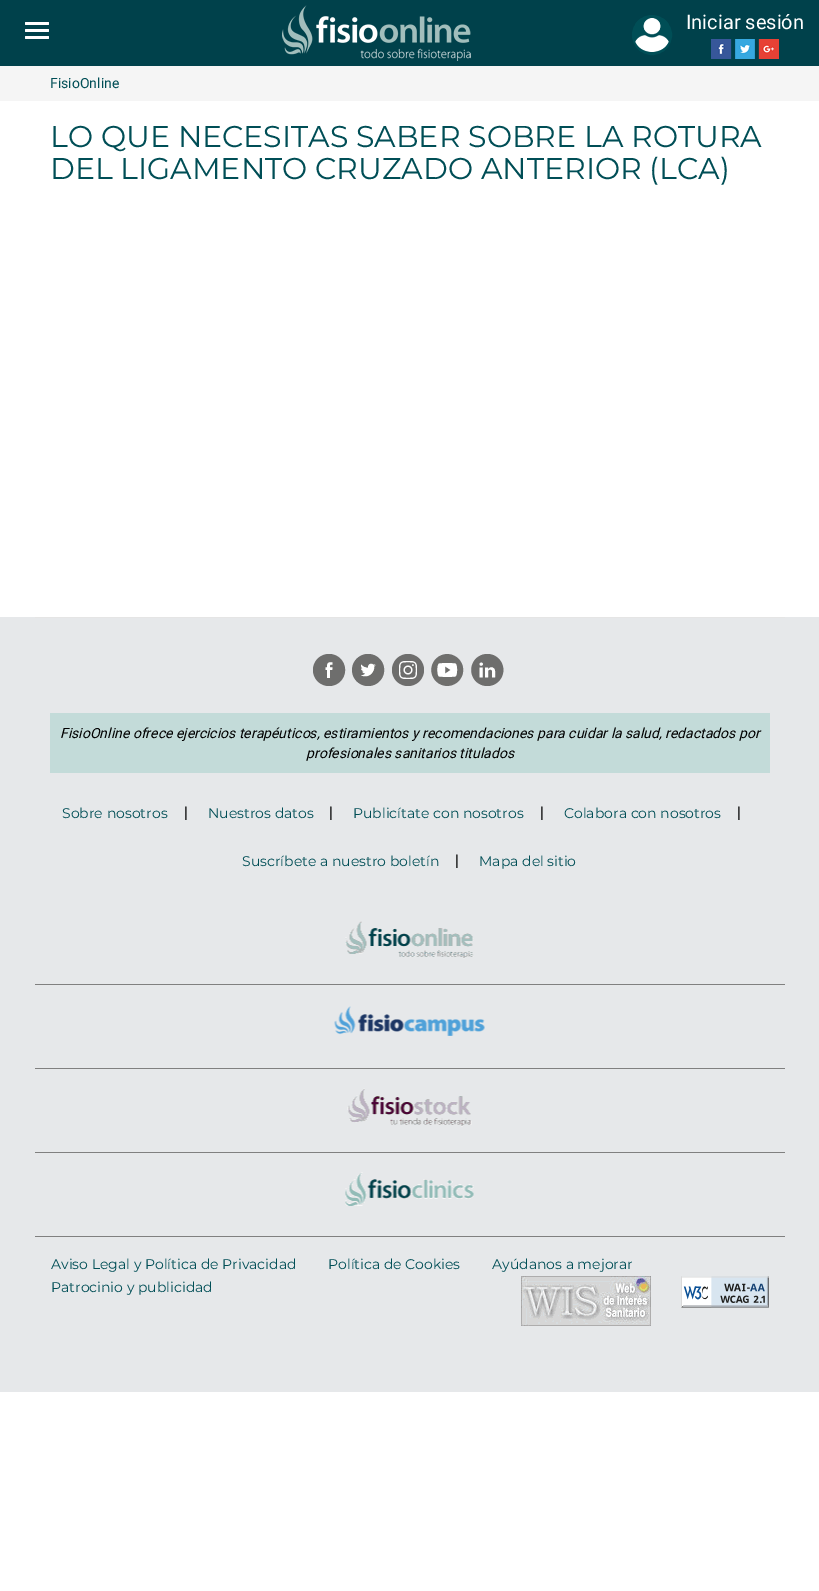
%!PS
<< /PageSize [819 1591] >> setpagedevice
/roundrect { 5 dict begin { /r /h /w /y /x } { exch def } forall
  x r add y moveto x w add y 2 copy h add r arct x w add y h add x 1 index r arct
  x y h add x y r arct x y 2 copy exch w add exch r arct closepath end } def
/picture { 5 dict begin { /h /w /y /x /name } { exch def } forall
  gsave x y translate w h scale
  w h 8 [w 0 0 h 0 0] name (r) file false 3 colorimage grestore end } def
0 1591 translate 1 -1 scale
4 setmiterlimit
1 setgray
0 0 819 1591 rectfill
0 0.255 0.294 setrgbcolor
0 0 819 66 rectfill
1 setgray
25 22 24 3 1 roundrect fill
25 29 24 3 1 roundrect fill
25 36 24 3 1 roundrect fill
(img1.rgb) 282 5 189 56 picture
0 0.306 0.337 setrgbcolor
newpath 652 35 19 0 360 arc closepath gsave fill grestore
2 setlinewidth
stroke
(img2.rgb) 635 18 34 34 picture
/Roboto-Regular [20 0 0 -20 0 0] selectfont
1 setgray
686 29 moveto (Iniciar sesión) show
(img3.rgb) 711 39 68 20 picture
0.961 setgray
0 66 819 35 rectfill
/Roboto-Regular [14 0 0 -14 0 0] selectfont
0 0.306 0.337 setrgbcolor
50 88 moveto (FisioOnline) show
/Montserrat-Regular [30 0 0 -30 0 0] selectfont
50 147 moveto (LO QUE NECESITAS SABER SOBRE LA ROTURA) show
50 179 moveto (DEL LIGAMENTO CRUZADO ANTERIOR \(LCA\)) show
0.902 0.91 0.918 setrgbcolor
0 617 819 775 rectfill
0.898 setgray
35 617 750 1 rectfill
(img4.rgb) 313 654 33 32 picture
(img5.rgb) 352 654 33 32 picture
(img6.rgb) 392 654 32 32 picture
(img7.rgb) 431 654 33 32 picture
(img8.rgb) 471 654 33 32 picture
0.765 0.859 0.851 setrgbcolor
50 713 720 60 rectfill
/Roboto-Italic [14 0 0 -14 0 0] selectfont
0.004 setgray
60 738 moveto (FisioOnline ofrece ejercicios terapéuticos, estiramientos y recomendaciones para cuidar la salud, redactados por) show
306 758 moveto (profesionales sanitarios titulados) show
/Montserrat-Regular [14 0 0 -14 0 0] selectfont
0 0.306 0.337 setrgbcolor
62 818 moveto (Sobre nosotros) show
/Roboto-Regular [16 0 0 -16 0 0] selectfont
0.004 setgray
184 818 moveto (|) show
/Montserrat-Regular [14 0 0 -14 0 0] selectfont
0 0.306 0.337 setrgbcolor
208 818 moveto (Nuestros datos) show
/Roboto-Regular [16 0 0 -16 0 0] selectfont
0.004 setgray
329 818 moveto (|) show
/Montserrat-Regular [14 0 0 -14 0 0] selectfont
0 0.306 0.337 setrgbcolor
353 818 moveto (Publicítate con nosotros) show
/Roboto-Regular [16 0 0 -16 0 0] selectfont
0.004 setgray
540 818 moveto (|) show
/Montserrat-Regular [14 0 0 -14 0 0] selectfont
0 0.306 0.337 setrgbcolor
564 818 moveto (Colabora con nosotros) show
/Roboto-Regular [16 0 0 -16 0 0] selectfont
0.004 setgray
737 818 moveto (|) show
/Montserrat-Regular [14 0 0 -14 0 0] selectfont
0 0.306 0.337 setrgbcolor
242 866 moveto (Suscríbete a nuestro boletín) show
/Roboto-Regular [16 0 0 -16 0 0] selectfont
0.004 setgray
455 866 moveto (|) show
/Montserrat-Regular [14 0 0 -14 0 0] selectfont
0 0.306 0.337 setrgbcolor
479 866 moveto (Mapa del sitio) show
0.502 setgray
35 984 750 1 rectfill
(img9.rgb) 345 921 129 38 picture
35 1068 750 1 rectfill
(img10.rgb) 334 1006 151 30 picture
35 1152 750 1 rectfill
(img11.rgb) 347 1088 125 39 picture
35 1236 750 1 rectfill
(img12.rgb) 345 1172 129 34 picture
0 0.306 0.337 setrgbcolor
51 1269 moveto (Aviso Legal y Política de Privacidad) show
328 1269 moveto (Política de Cookies) show
492 1269 moveto (Ayúdanos a mejorar) show
51 1292 moveto (Patrocinio y publicidad) show
(img13.rgb) 521 1276 130 50 picture
(img14.rgb) 681 1276 88 32 picture
showpage
